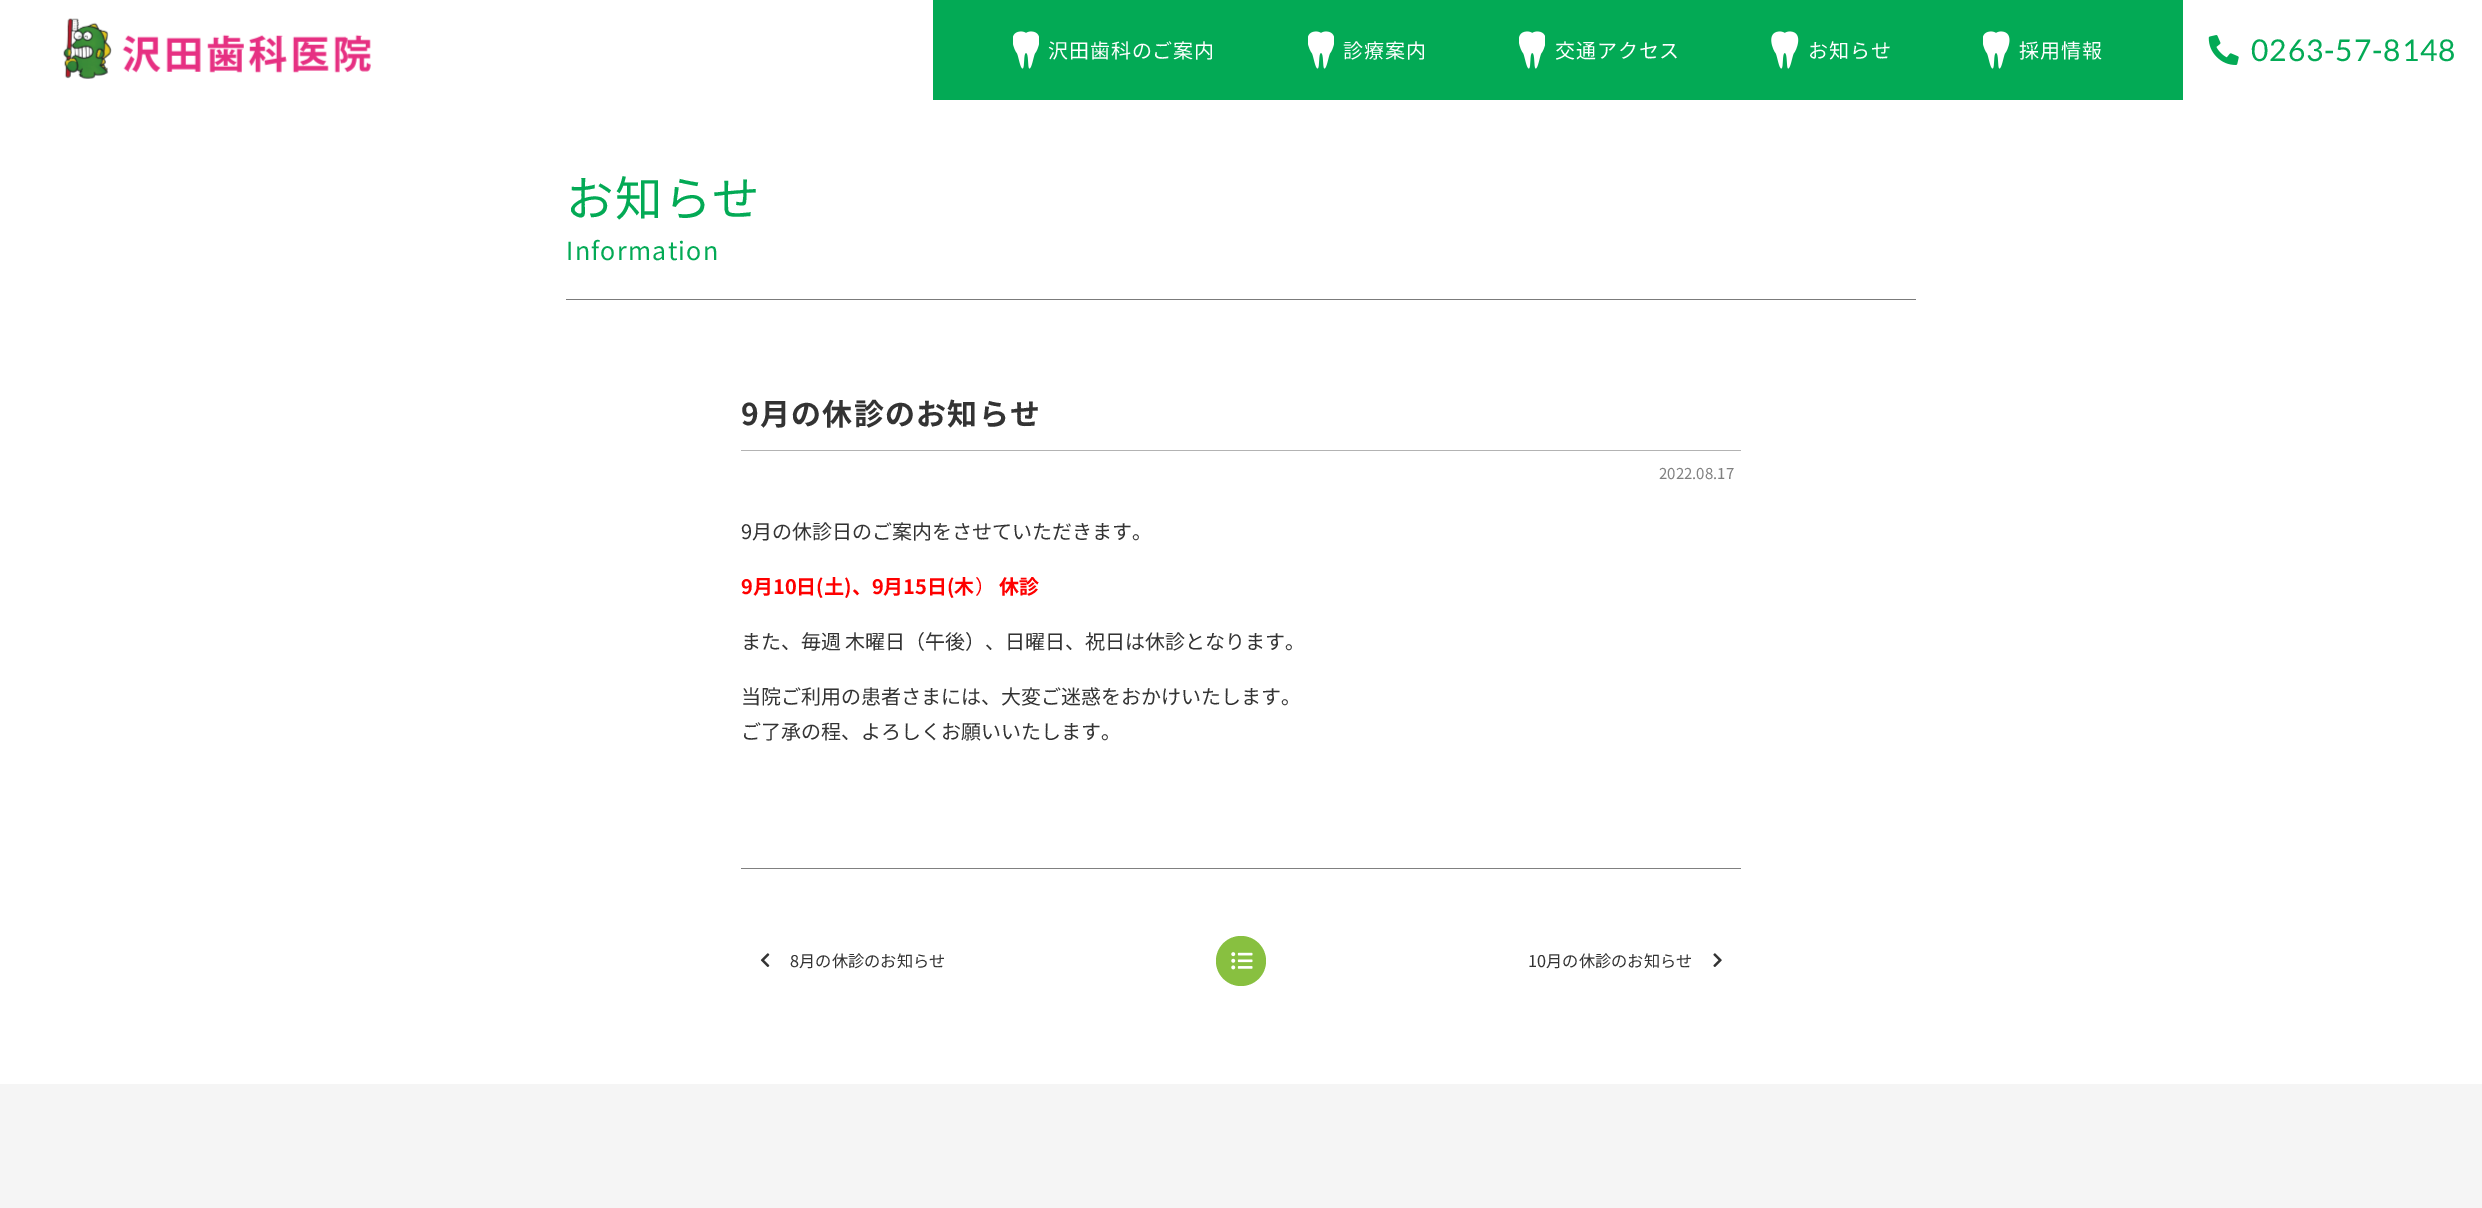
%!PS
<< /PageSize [2482 1208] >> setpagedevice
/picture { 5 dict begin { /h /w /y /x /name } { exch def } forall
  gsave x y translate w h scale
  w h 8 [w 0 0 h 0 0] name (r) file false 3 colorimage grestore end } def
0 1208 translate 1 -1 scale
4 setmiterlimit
1 setgray
0 0 2482 1208 rectfill
(img1.rgb) 63 18 308 61 picture
0.012 0.667 0.333 setrgbcolor
933 0 1250 100 rectfill
(img2.rgb) 1013 31 26 38 picture
/NotoSansJP-Regular [20 0 0 -20 0 0] selectfont
1 setgray
1048 58 moveto 0.9 0 (沢田歯科のご案内) ashow
(img2.rgb) 1308 31 26 38 picture
1343 58 moveto 0.9 0 (診療案内) ashow
(img3.rgb) 1519 31 26 38 picture
1555 58 moveto 0.9 0 (交通アクセス) ashow
(img4.rgb) 1771 31 28 38 picture
1808 58 moveto 0.9 0 (お知らせ) ashow
(img5.rgb) 1983 31 27 38 picture
2019 58 moveto 0.9 0 (採用情報) ashow
(img6.rgb) 2208 35 31 30 picture
/Lato-Regular [30 0 0 -30 0 0] selectfont
0.012 0.667 0.333 setrgbcolor
2251 61 moveto 0.9 0 (0263-57-8148) ashow
0.482 setgray
566 299 1350 1 rectfill
/NotoSansJP-Regular [47.5 0 0 -47.5 0 0] selectfont
0.012 0.667 0.333 setrgbcolor
566 216 moveto 1.25 0 (お知らせ) ashow
/NotoSansJP-Regular [25 0 0 -25 0 0] selectfont
566 260 moveto 1.25 0 (Information) ashow
0.702 setgray
741 450 1000 1 rectfill
/NotoSansJP-Bold [30 0 0 -30 0 0] selectfont
0.2 setgray
741 425 moveto 1.25 0 (9月の休診のお知らせ) ashow
/NotoSansJP-Regular [15 0 0 -15 0 0] selectfont
0.502 setgray
1659 479 moveto (2022.08.17) show
/NotoSansJP-Regular [20 0 0 -20 0 0] selectfont
0.2 setgray
741 539 moveto (9月の休診日のご案内をさせていただきます。) show
/NotoSansJP-Bold [20 0 0 -20 0 0] selectfont
0.996 0 0 setrgbcolor
741 594 moveto (9月10日\(土\)、9月15日\(木) show
/NotoSansJP-Regular [20 0 0 -20 0 0] selectfont
975 594 moveto (）) show
/NotoSansJP-Bold [20 0 0 -20 0 0] selectfont
999 594 moveto (休診) show
/NotoSansJP-Regular [20 0 0 -20 0 0] selectfont
0.2 setgray
741 649 moveto (また、毎週 木曜日（午後）、日曜日、祝日は休診となります。) show
741 704 moveto (当院ご利用の患者さまには、大変ご迷惑をおかけいたします。) show
741 739 moveto (ご了承の程、よろしくお願いいたします。) show
0.502 setgray
741 868 1000 1 rectfill
(img7.rgb) 760 953 10 14 picture
/NotoSansJP-Regular [16.25 0 0 -16.25 0 0] selectfont
0.2 setgray
790 967 moveto (8月の休診のお知らせ) show
0.533 0.753 0.251 setrgbcolor
newpath 1241 961 25 0 360 arc closepath fill
(img8.rgb) 1231 952 22 18 picture
0.2 setgray
1528 967 moveto (10月の休診のお知らせ) show
(img9.rgb) 1713 953 9 14 picture
0.961 setgray
0 1084 2482 124 rectfill
showpage
